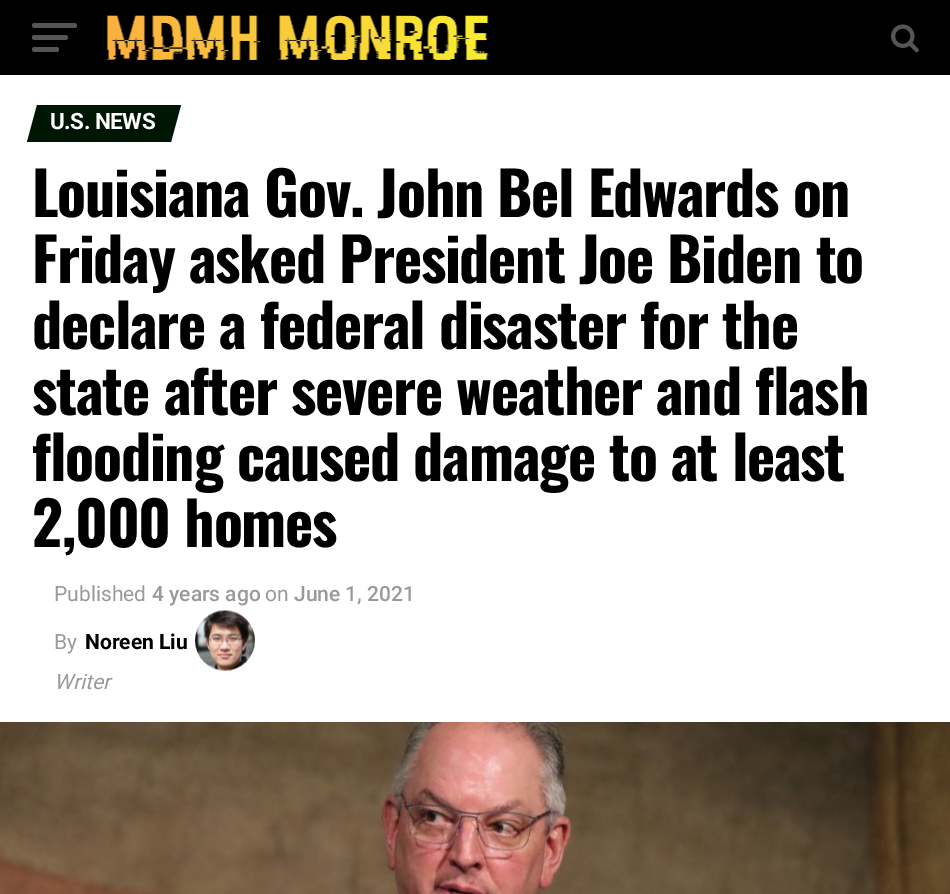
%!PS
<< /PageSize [950 894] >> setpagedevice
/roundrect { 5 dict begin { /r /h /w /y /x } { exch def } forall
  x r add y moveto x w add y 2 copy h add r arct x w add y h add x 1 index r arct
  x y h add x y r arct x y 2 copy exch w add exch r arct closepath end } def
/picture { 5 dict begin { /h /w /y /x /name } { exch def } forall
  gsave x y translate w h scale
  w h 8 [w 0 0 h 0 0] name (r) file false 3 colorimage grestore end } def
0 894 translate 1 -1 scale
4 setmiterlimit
1 setgray
0 0 950 894 rectfill
0 setgray
0 0 950 75 rectfill
0.333 setgray
32 23 45 5 2.5 roundrect fill
32 35 36 5 2.5 roundrect fill
32 47 27 5 2.5 roundrect fill
(img1.rgb) 106 15 383 45 picture
(img2.rgb) 891 24 28 29 picture
0 0.086 0.016 setrgbcolor
newpath 37 105 moveto 181 105 lineto 171 142 lineto 27 142 lineto closepath fill
/Roboto-Bold [22.5 0 0 -22.5 0 0] selectfont
1 setgray
50 129 moveto -0.5 0 (U.S. NEWS) ashow
/Oswald-Bold [60 0 0 -60 0 0] selectfont
0 setgray
32 217 moveto -1.2 0 (Louisiana Gov. John Bel Edwards on) ashow
32 283 moveto -1.2 0 (Friday asked President Joe Biden to) ashow
32 349 moveto -1.2 0 (declare a federal disaster for the) ashow
32 415 moveto -1.2 0 (state after severe weather and flash) ashow
32 481 moveto -1.2 0 (flooding caused damage to at least) ashow
32 547 moveto -1.2 0 (2,000 homes) ashow
/Roboto-Regular [21 0 0 -21 0 0] selectfont
0.6 setgray
54 601 moveto (Published) show
/Roboto-Medium [21 0 0 -21 0 0] selectfont
152 601 moveto (4 years ago) show
/Roboto-Regular [21 0 0 -21 0 0] selectfont
265 601 moveto (on) show
/Roboto-Medium [21 0 0 -21 0 0] selectfont
294 601 moveto (June 1, 2021) show
/Roboto-Regular [21 0 0 -21 0 0] selectfont
54 649 moveto (By) show
/Roboto-Bold [21 0 0 -21 0 0] selectfont
0 setgray
85 649 moveto (Noreen Liu) show
(img3.rgb) 195 610 60 61 picture
/Roboto-Italic [21 0 0 -21 0 0] selectfont
0.6 setgray
54 689 moveto (Writer) show
(img4.rgb) 0 722 950 172 picture
showpage
